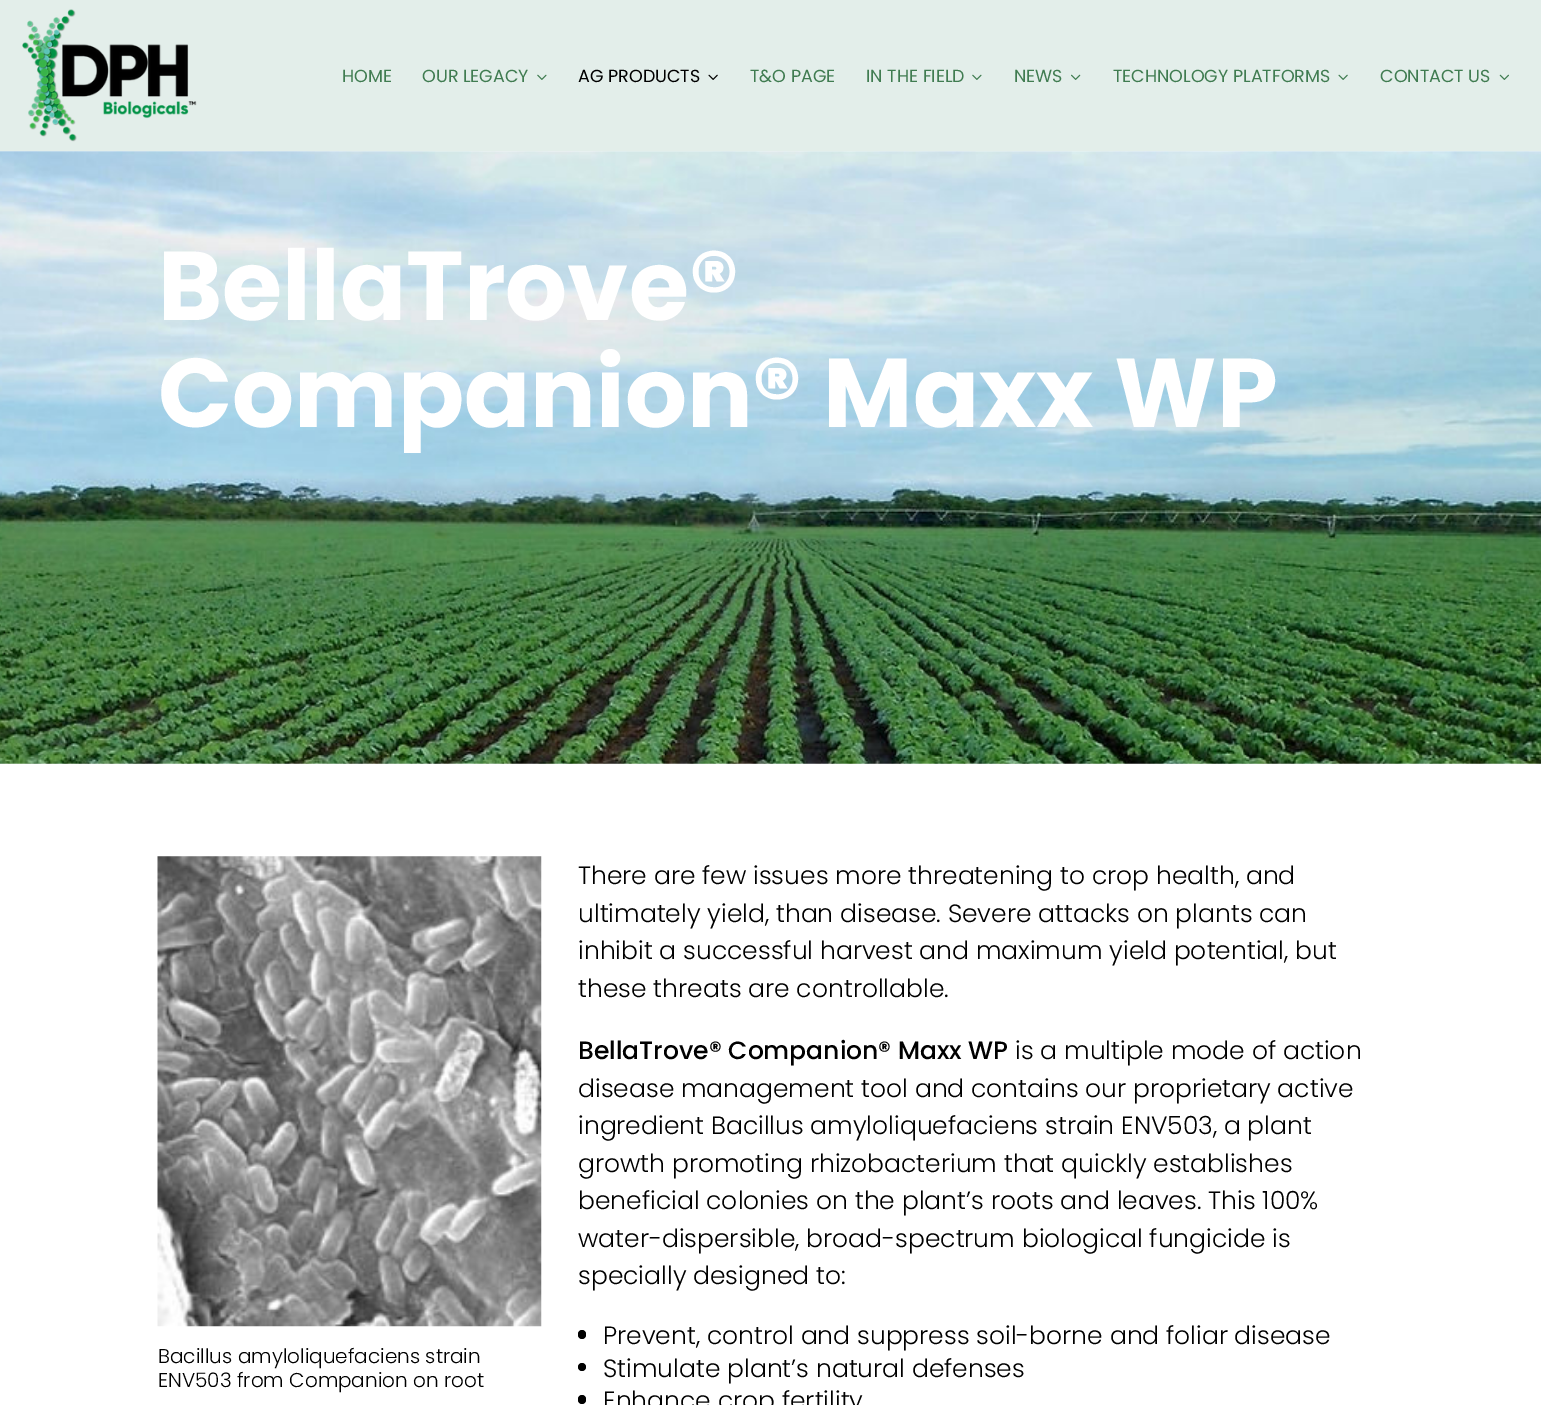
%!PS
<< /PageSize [1541 1405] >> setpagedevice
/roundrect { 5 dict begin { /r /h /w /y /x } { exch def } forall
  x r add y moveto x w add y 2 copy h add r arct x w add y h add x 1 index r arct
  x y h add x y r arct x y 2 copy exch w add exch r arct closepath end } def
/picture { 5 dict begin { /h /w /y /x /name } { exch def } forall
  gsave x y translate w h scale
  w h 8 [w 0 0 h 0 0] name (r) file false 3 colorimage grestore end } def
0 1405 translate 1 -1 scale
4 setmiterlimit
1 setgray
0 0 1541 1405 rectfill
0.89 0.933 0.918 setrgbcolor
0 0 1541 151 rectfill
(img1.rgb) 22 9 175 133 picture
/Poppins-Regular [17.5 0 0 -17.5 0 0] selectfont
0.251 0.486 0.318 setrgbcolor
342 82 moveto (HOME) show
422 82 moveto (OUR LEGACY) show
(img2.rgb) 537 74 10 6 picture
0 setgray
578 82 moveto (AG PRODUCTS) show
(img3.rgb) 708 74 10 6 picture
0.251 0.486 0.318 setrgbcolor
750 82 moveto (T&O PAGE) show
866 82 moveto (IN THE FIELD) show
(img2.rgb) 972 74 10 6 picture
1014 82 moveto (NEWS) show
(img4.rgb) 1071 74 10 6 picture
1113 82 moveto (TECHNOLOGY PLATFORMS) show
(img5.rgb) 1338 74 10 6 picture
1380 82 moveto (CONTACT US) show
(img6.rgb) 1499 74 10 6 picture
(img7.rgb) 0 151 1541 613 picture
/Poppins-Bold [97.5 0 0 -97.5 0 0] selectfont
1 setgray
158 320 moveto (BellaTrove®) show
158 427 moveto (Companion® Maxx WP) show
(img8.rgb) 157 856 385 471 picture
/Poppins-Light [20 0 0 -20 0 0] selectfont
0 setgray
158 1363 moveto (Bacillus amyloliquefaciens strain) show
158 1387 moveto (ENV503 from Companion on root) show
/Poppins-Light [25 0 0 -25 0 0] selectfont
578 884 moveto (There are few issues more threatening to crop health, and) show
578 922 moveto (ultimately yield, than disease. Severe attacks on plants can) show
578 959 moveto (inhibit a successful harvest and maximum yield potential, but) show
578 997 moveto (these threats are controllable.) show
/Poppins-Medium [25 0 0 -25 0 0] selectfont
578 1059 moveto (BellaTrove® Companion® Maxx WP) show
/Poppins-Light [25 0 0 -25 0 0] selectfont
1015 1059 moveto (is a multiple mode of action) show
578 1097 moveto (disease management tool and contains our proprietary active) show
578 1134 moveto (ingredient Bacillus amyloliquefaciens strain ENV503, a plant) show
578 1172 moveto (growth promoting rhizobacterium that quickly establishes) show
578 1209 moveto (beneficial colonies on the plant’s roots and leaves. This 100%) show
578 1247 moveto (water-dispersible, broad-spectrum biological fungicide is) show
578 1284 moveto (specially designed to:) show
578 1330 8 9 4 roundrect fill
603 1344 moveto (Prevent, control and suppress soil-borne and foliar disease) show
newpath 582 1367 4 0 360 arc closepath fill
603 1377 moveto (Stimulate plant’s natural defenses) show
578 1395 8 9 4 roundrect fill
603 1409 moveto (Enhance crop fertility) show
showpage
